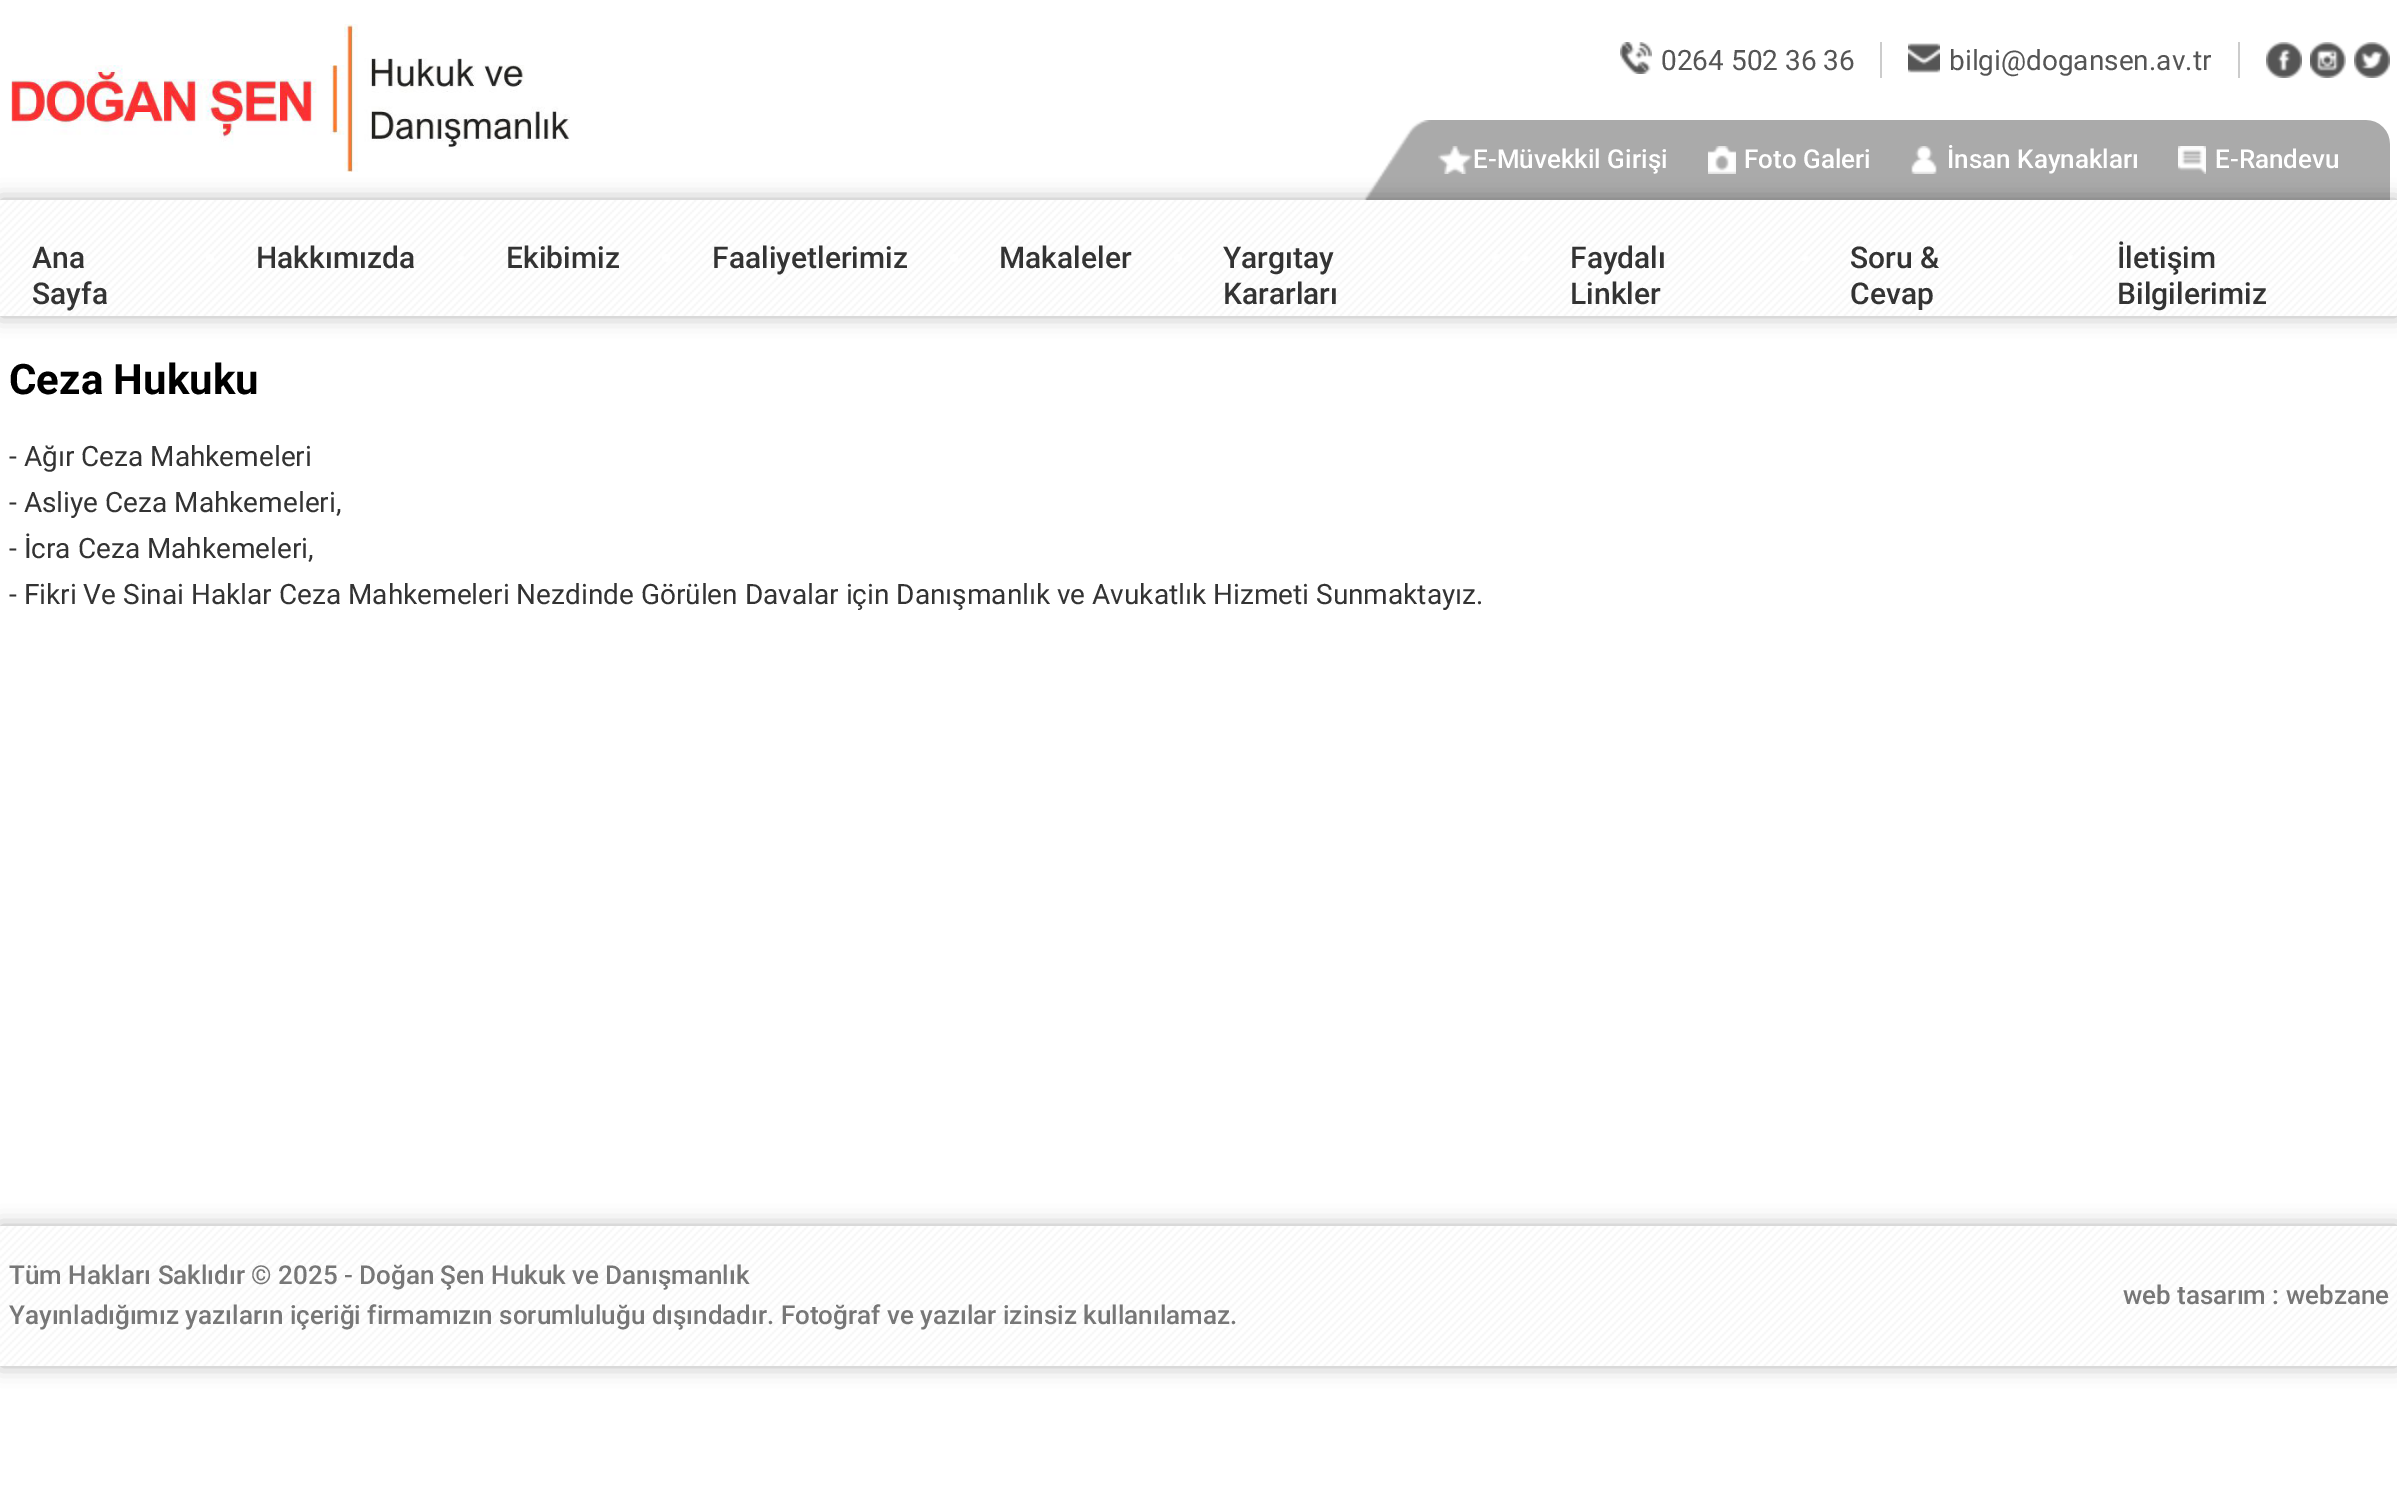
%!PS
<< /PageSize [2397 1512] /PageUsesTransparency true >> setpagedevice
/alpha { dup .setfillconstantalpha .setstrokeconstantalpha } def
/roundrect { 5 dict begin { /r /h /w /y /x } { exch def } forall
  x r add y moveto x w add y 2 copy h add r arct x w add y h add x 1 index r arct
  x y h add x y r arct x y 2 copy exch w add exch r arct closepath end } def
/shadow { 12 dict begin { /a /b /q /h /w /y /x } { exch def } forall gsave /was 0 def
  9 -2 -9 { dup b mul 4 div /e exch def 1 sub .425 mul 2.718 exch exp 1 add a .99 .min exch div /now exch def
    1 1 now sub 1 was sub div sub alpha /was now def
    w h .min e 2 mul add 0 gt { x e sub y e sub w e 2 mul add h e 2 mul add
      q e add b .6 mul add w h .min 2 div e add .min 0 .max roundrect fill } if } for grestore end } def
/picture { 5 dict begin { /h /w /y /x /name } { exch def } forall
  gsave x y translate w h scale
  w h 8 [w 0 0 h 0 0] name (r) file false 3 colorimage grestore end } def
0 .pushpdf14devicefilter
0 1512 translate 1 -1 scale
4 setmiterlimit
1 setgray
0 0 2397 1512 rectfill
(img7.rgb) 1364 120 1026 80 picture
(img8.rgb) 1438 146 34 28 picture
(img9.rgb) 1708 146 28 28 picture
(img10.rgb) 1911 146 26 28 picture
(img11.rgb) 2178 146 28 28 picture
gsave
newpath 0 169 moveto 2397 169 lineto 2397 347 lineto 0 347 lineto closepath 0 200 moveto 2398 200 lineto 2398 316 lineto 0 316 lineto closepath eoclip newpath
0 setgray
0 200 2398 116 0 10 0.3 shadow
grestore
(img1.rgb) 11 24 559 148 picture
0.8 setgray
1880 42 2 36 rectfill
(img2.rgb) 1620 42 32 32 picture
/Roboto-Regular [28 0 0 -28 0 0] selectfont
0.333 setgray
1661 70 moveto (0264 502 36 36) show
0.8 setgray
2238 42 2 36 rectfill
(img3.rgb) 1908 43 32 30 picture
0.333 setgray
1949 70 moveto (bilgi@dogansen.av.tr) show
(img4.rgb) 2266 42 36 36 picture
(img5.rgb) 2310 42 36 36 picture
(img6.rgb) 2354 42 36 36 picture
/Roboto-Medium [26 0 0 -26 0 0] selectfont
1 setgray
1473 168 moveto (E-Müvekkil Girişi) show
1744 168 moveto (Foto Galeri) show
1947 168 moveto (İnsan Kaynakları) show
2215 168 moveto (E-Randevu) show
(img12.rgb) 0 200 2397 116 picture
/Roboto-Medium [30 0 0 -30 0 0] selectfont
0.2 setgray
32 268 moveto (Ana) show
32 304 moveto (Sayfa) show
(img13.rgb) 206 254 8 8 picture
256 268 moveto (Hakkımızda) show
(img14.rgb) 458 256 6 5 picture
506 268 moveto (Ekibimiz) show
(img13.rgb) 662 254 8 8 picture
712 268 moveto (Faaliyetlerimiz) show
(img13.rgb) 950 254 8 8 picture
999 268 moveto (Makaleler) show
(img13.rgb) 1174 254 8 8 picture
1223 268 moveto (Yargıtay) show
1223 304 moveto (Kararları) show
(img15.rgb) 1492 254 7 7 picture
(img14.rgb) 1522 256 6 5 picture
1570 268 moveto (Faydalı) show
1570 304 moveto (Linkler) show
(img14.rgb) 1802 256 6 5 picture
1850 268 moveto (Soru &) show
1850 304 moveto (Cevap) show
(img16.rgb) 2067 255 6 6 picture
2117 268 moveto (İletişim) show
2117 304 moveto (Bilgilerimiz) show
/Roboto-Bold [42 0 0 -42 0 0] selectfont
0 setgray
9 394 moveto (Ceza Hukuku) show
/Roboto-Regular [28 0 0 -28 0 0] selectfont
0.2 setgray
9 466 moveto (- Ağır Ceza Mahkemeleri) show
9 512 moveto (- Asliye Ceza Mahkemeleri,) show
9 558 moveto (- İcra Ceza Mahkemeleri,) show
9 604 moveto (- Fikri Ve Sinai Haklar Ceza Mahkemeleri Nezdinde Görülen Davalar için Danışmanlık ve Avukatlık Hizmeti Sunmaktayız.) show
gsave
newpath 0 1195 moveto 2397 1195 lineto 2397 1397 lineto 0 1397 lineto closepath 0 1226 moveto 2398 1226 lineto 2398 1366 lineto 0 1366 lineto closepath eoclip newpath
0 setgray
0 1226 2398 140 0 10 0.3 shadow
grestore
(img17.rgb) 0 1226 2397 140 picture
/Roboto-Medium [26 0 0 -26 0 0] selectfont
0.467 setgray
9 1284 moveto (Tüm Hakları Saklıdır © 2025 - Doğan Şen Hukuk ve Danışmanlık) show
9 1324 moveto (Yayınladığımız yazıların içeriği firmamızın sorumluluğu dışındadır. Fotoğraf ve yazılar izinsiz kullanılamaz.) show
2123 1304 moveto (web tasarım : webzane) show
.poppdf14devicefilter showpage
